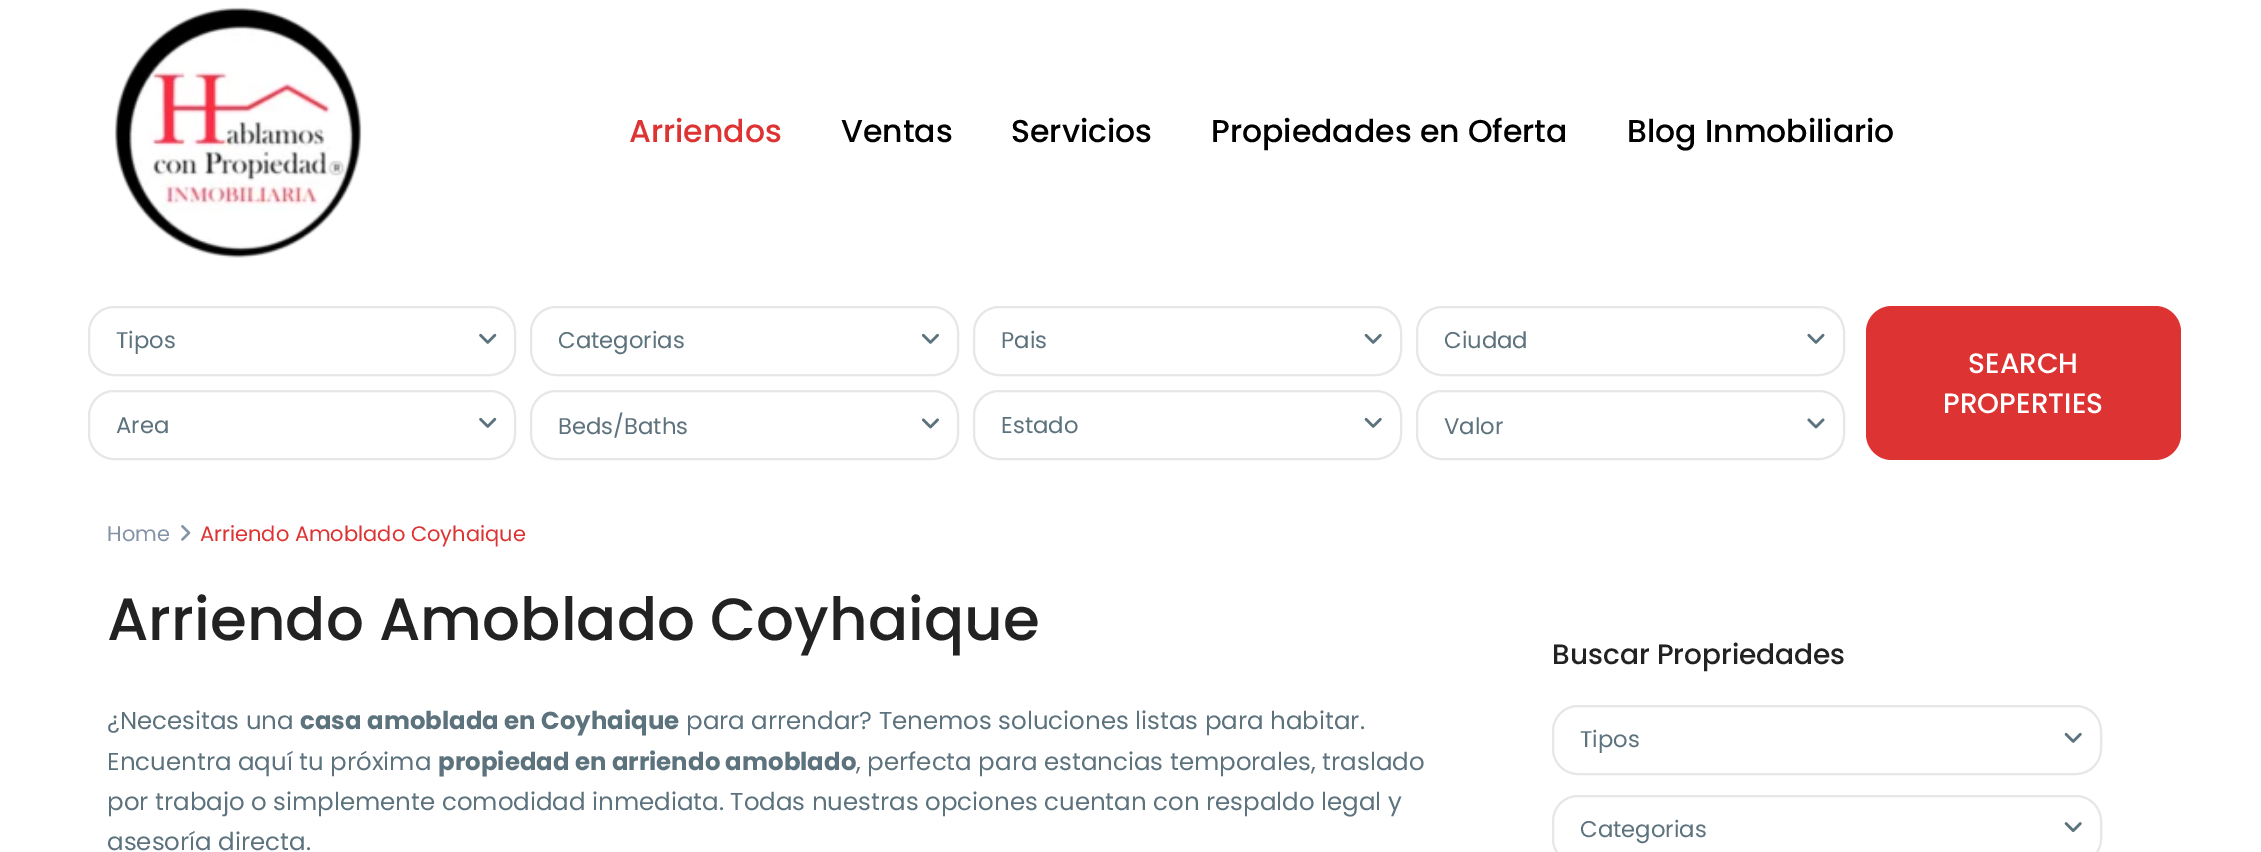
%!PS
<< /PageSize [2261 852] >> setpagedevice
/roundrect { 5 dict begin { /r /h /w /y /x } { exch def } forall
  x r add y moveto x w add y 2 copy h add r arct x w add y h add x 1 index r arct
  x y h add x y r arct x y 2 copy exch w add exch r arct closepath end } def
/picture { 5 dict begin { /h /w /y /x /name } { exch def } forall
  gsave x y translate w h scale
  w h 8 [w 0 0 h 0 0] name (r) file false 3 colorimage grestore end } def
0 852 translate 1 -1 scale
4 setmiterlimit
1 setgray
0 0 2261 852 rectfill
(img1.rgb) 114 7 248 251 picture
/Poppins-Medium [31.5 0 0 -31.5 0 0] selectfont
0.867 0.2 0.2 setrgbcolor
629 142 moveto (Arriendos) show
0 setgray
841 142 moveto (Ventas) show
1011 142 moveto (Servicios) show
1211 142 moveto (Propiedades en Oferta) show
1627 142 moveto (Blog Inmobiliario) show
0.906 setgray
2 setlinewidth
89 307 426 68 25 roundrect stroke
/Poppins-Regular [22.75 0 0 -22.75 0 0] selectfont
0.361 0.447 0.49 setrgbcolor
116 348 moveto (Tipos) show
(img2.rgb) 479 333 18 11 picture
0.906 setgray
531 307 427 68 25 roundrect stroke
0.361 0.447 0.49 setrgbcolor
558 348 moveto (Categorias) show
(img3.rgb) 921 333 18 11 picture
0.906 setgray
974 307 427 68 25 roundrect stroke
0.361 0.447 0.49 setrgbcolor
1001 348 moveto (Pais) show
(img4.rgb) 1364 333 18 11 picture
0.906 setgray
1417 307 427 68 25 roundrect stroke
0.361 0.447 0.49 setrgbcolor
1444 348 moveto (Ciudad) show
(img5.rgb) 1807 333 18 11 picture
0.906 setgray
89 391 426 68 25 roundrect stroke
0.361 0.447 0.49 setrgbcolor
116 433 moveto (Area) show
(img2.rgb) 479 417 18 11 picture
0.906 setgray
531 391 427 68 25 roundrect stroke
0.361 0.447 0.49 setrgbcolor
558 434 moveto (Beds/Baths) show
(img6.rgb) 922 418 17 11 picture
0.906 setgray
974 391 427 68 25 roundrect stroke
0.361 0.447 0.49 setrgbcolor
1001 433 moveto (Estado) show
(img4.rgb) 1364 417 18 11 picture
0.906 setgray
1417 391 427 68 25 roundrect stroke
0.361 0.447 0.49 setrgbcolor
1444 434 moveto (Valor) show
(img7.rgb) 1807 418 18 11 picture
0.867 0.2 0.2 setrgbcolor
1866 306 315 154 26 roundrect fill
/Poppins-Medium [28 0 0 -28 0 0] selectfont
1 setgray
1968 373 moveto (SEARCH) show
1943 413 moveto (PROPERTIES) show
/Poppins-Regular [21 0 0 -21 0 0] selectfont
0.522 0.576 0.663 setrgbcolor
107 541 moveto (Home) show
(img8.rgb) 181 525 10 16 picture
0.867 0.2 0.2 setrgbcolor
200 541 moveto (Arriendo Amoblado Coyhaique) show
/Poppins-Medium [59.5 0 0 -59.5 0 0] selectfont
0.133 setgray
107 640 moveto (Arriendo Amoblado Coyhaique) show
/Poppins-Regular [24.5 0 0 -24.5 0 0] selectfont
0.361 0.447 0.49 setrgbcolor
107 729 moveto (¿Necesitas una) show
/Poppins-Bold [24.5 0 0 -24.5 0 0] selectfont
300 729 moveto (casa amoblada en Coyhaique) show
/Poppins-Regular [24.5 0 0 -24.5 0 0] selectfont
686 729 moveto (para arrendar? Tenemos soluciones listas para habitar.) show
107 770 moveto (Encuentra aquí tu próxima) show
/Poppins-Bold [24.5 0 0 -24.5 0 0] selectfont
438 770 moveto (propiedad en arriendo amoblado) show
/Poppins-Regular [24.5 0 0 -24.5 0 0] selectfont
856 770 moveto (, perfecta para estancias temporales, traslado) show
107 810 moveto (por trabajo o simplemente comodidad inmediata. Todas nuestras opciones cuentan con respaldo legal y) show
107 850 moveto (asesoría directa.) show
/Poppins-Medium [28 0 0 -28 0 0] selectfont
0.133 setgray
1552 664 moveto (Buscar Propriedades) show
0.906 setgray
1553 706 548 68 25 roundrect stroke
/Poppins-Regular [22.75 0 0 -22.75 0 0] selectfont
0.361 0.447 0.49 setrgbcolor
1580 747 moveto (Tipos) show
(img4.rgb) 2064 732 18 11 picture
0.906 setgray
1553 796 548 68 25 roundrect stroke
0.361 0.447 0.49 setrgbcolor
1580 837 moveto (Categorias) show
(img9.rgb) 2064 822 18 11 picture
showpage
